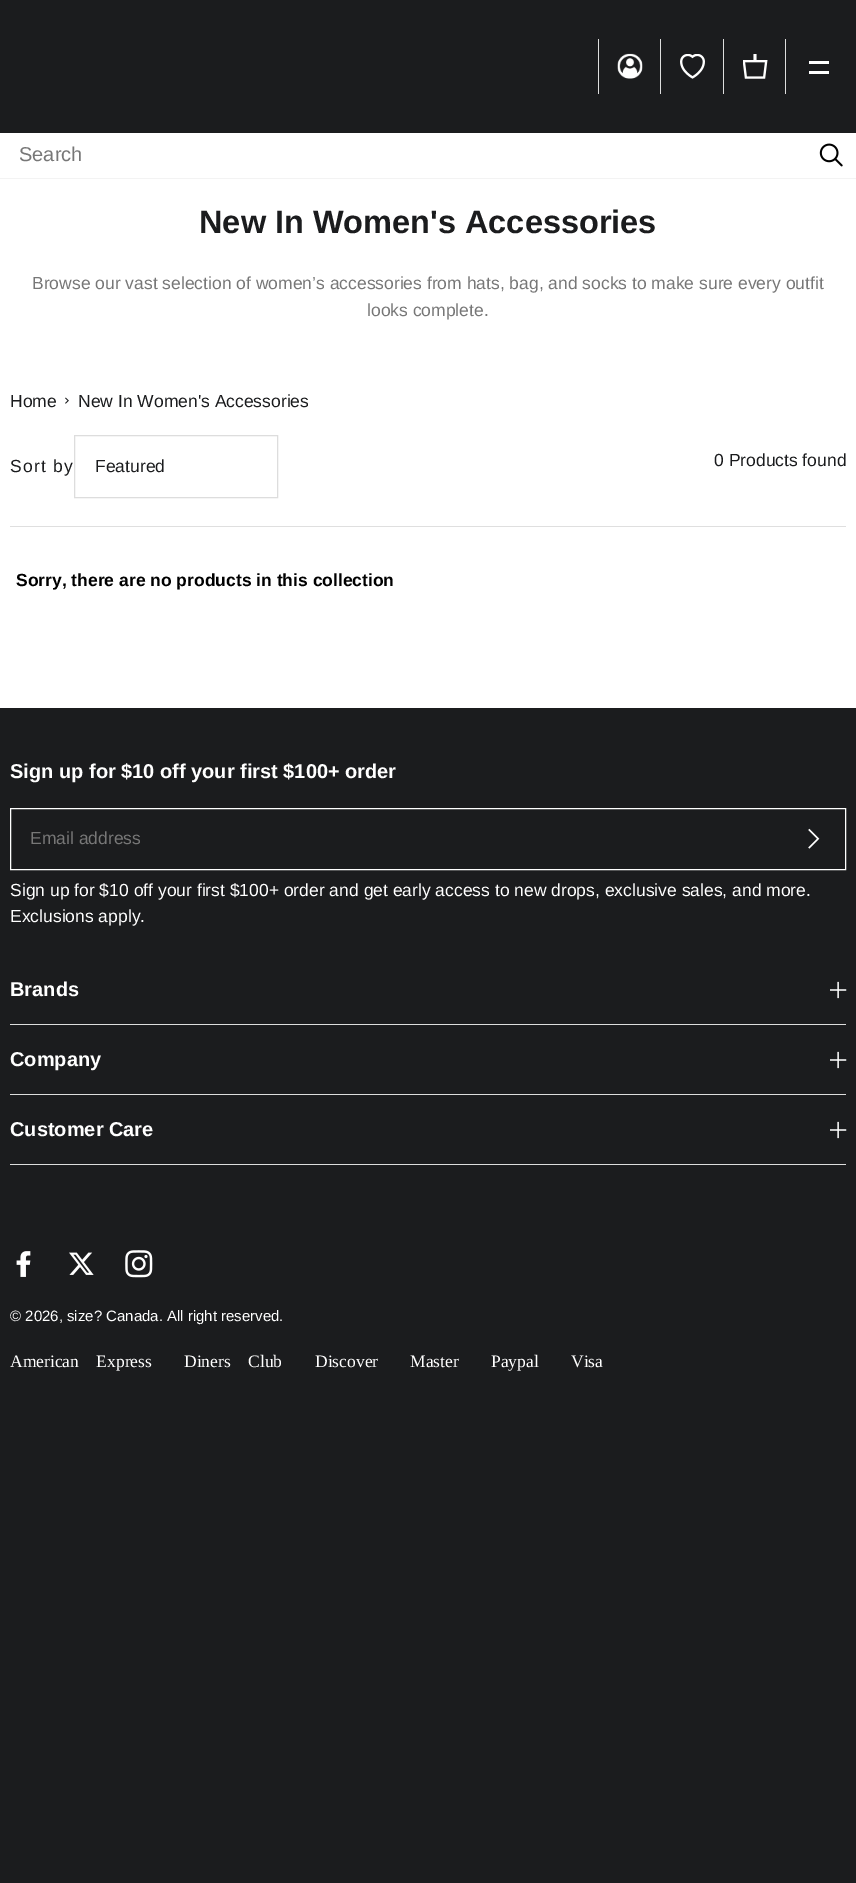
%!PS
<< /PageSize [856 1883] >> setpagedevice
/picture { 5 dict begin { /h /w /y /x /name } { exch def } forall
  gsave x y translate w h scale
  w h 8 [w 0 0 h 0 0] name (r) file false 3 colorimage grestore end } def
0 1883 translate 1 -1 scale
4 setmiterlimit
0.106 0.11 0.118 setrgbcolor
0 0 856 1883 rectfill
1 setgray
0 179 856 529 rectfill
0.867 setgray
785 39 1 55 rectfill
598 39 1 55 rectfill
(img1.rgb) 617 53 26 26 picture
660 39 1 55 rectfill
(img2.rgb) 680 54 25 25 picture
723 39 1 55 rectfill
(img3.rgb) 743 54 25 25 picture
1 setgray
809 61 20 3 rectfill
809 71 20 3 rectfill
0 133 856 45 rectfill
0.953 setgray
0 178 856 1 rectfill
/LiberationSans-Regular [20 0 0 -20 0 0] selectfont
0.467 setgray
19 161 moveto (Search) show
(img4.rgb) 819 143 24 24 picture
/LiberationSans-Bold [32.5 0 0 -32.5 0 0] selectfont
0.106 0.11 0.118 setrgbcolor
199 233 moveto (New In Women's Accessories) show
/LiberationSans-Regular [17.5 0 0 -17.5 0 0] selectfont
0.467 setgray
32 289 moveto (Browse our vast selection of women’s accessories from hats, bag, and socks to make sure every outfit) show
367 316 moveto (looks complete.) show
0.106 0.11 0.118 setrgbcolor
10 407 moveto (Home) show
(img5.rgb) 65 397 4 7 picture
78 407 moveto (New In Women's Accessories) show
0.875 setgray
10 526 836 1 rectfill
0.106 0.11 0.118 setrgbcolor
10 472 moveto 1.25 0 (Sort by) ashow
0.867 setgray
74.5 435.5 203 62 rectstroke
0.106 0.11 0.118 setrgbcolor
95 472 moveto (Featured) show
714 466 moveto (0 Products found) show
/LiberationSans-Bold [17.5 0 0 -17.5 0 0] selectfont
0 setgray
16 586 moveto (Sorry, there are no products in this collection) show
/LiberationSans-Bold [20 0 0 -20 0 0] selectfont
1 setgray
10 778 moveto (Sign up for $10 off your first $100+ order) show
10.5 808.5 835 61 rectstroke
/LiberationSans-Regular [17.5 0 0 -17.5 0 0] selectfont
0.467 setgray
30 844 moveto (Email address) show
(img6.rgb) 808 828 12 21 picture
1 setgray
10 896 moveto (Sign up for $10 off your first $100+ order and get early access to new drops, exclusive sales, and more.) show
10 922 moveto (Exclusions apply.) show
/LiberationSans-Bold [20 0 0 -20 0 0] selectfont
10 996 moveto (Brands) show
(img7.rgb) 830 981 17 18 picture
0.867 setgray
10 1024 836 1 rectfill
1 setgray
10 1066 moveto (Company) show
(img7.rgb) 830 1051 17 18 picture
0.867 setgray
10 1094 836 1 rectfill
1 setgray
10 1136 moveto (Customer Care) show
(img7.rgb) 830 1121 17 18 picture
0.867 setgray
10 1164 836 1 rectfill
(img8.rgb) 16 1251 15 26 picture
(img9.rgb) 69 1252 25 23 picture
(img10.rgb) 125 1250 28 28 picture
/LiberationSans-Regular [15 0 0 -15 0 0] selectfont
1 setgray
10 1321 moveto (© 2026, size? Canada. All right reserved.) show
/LiberationSerif-Regular [17.5 0 0 -17.5 0 0] selectfont
10 1367 moveto 13 0 32 (American Express) widthshow
184 1367 moveto 13 0 32 (Diners Club) widthshow
315 1367 moveto (Discover) show
410 1367 moveto (Master) show
491 1367 moveto (Paypal) show
571 1367 moveto (Visa) show
showpage
